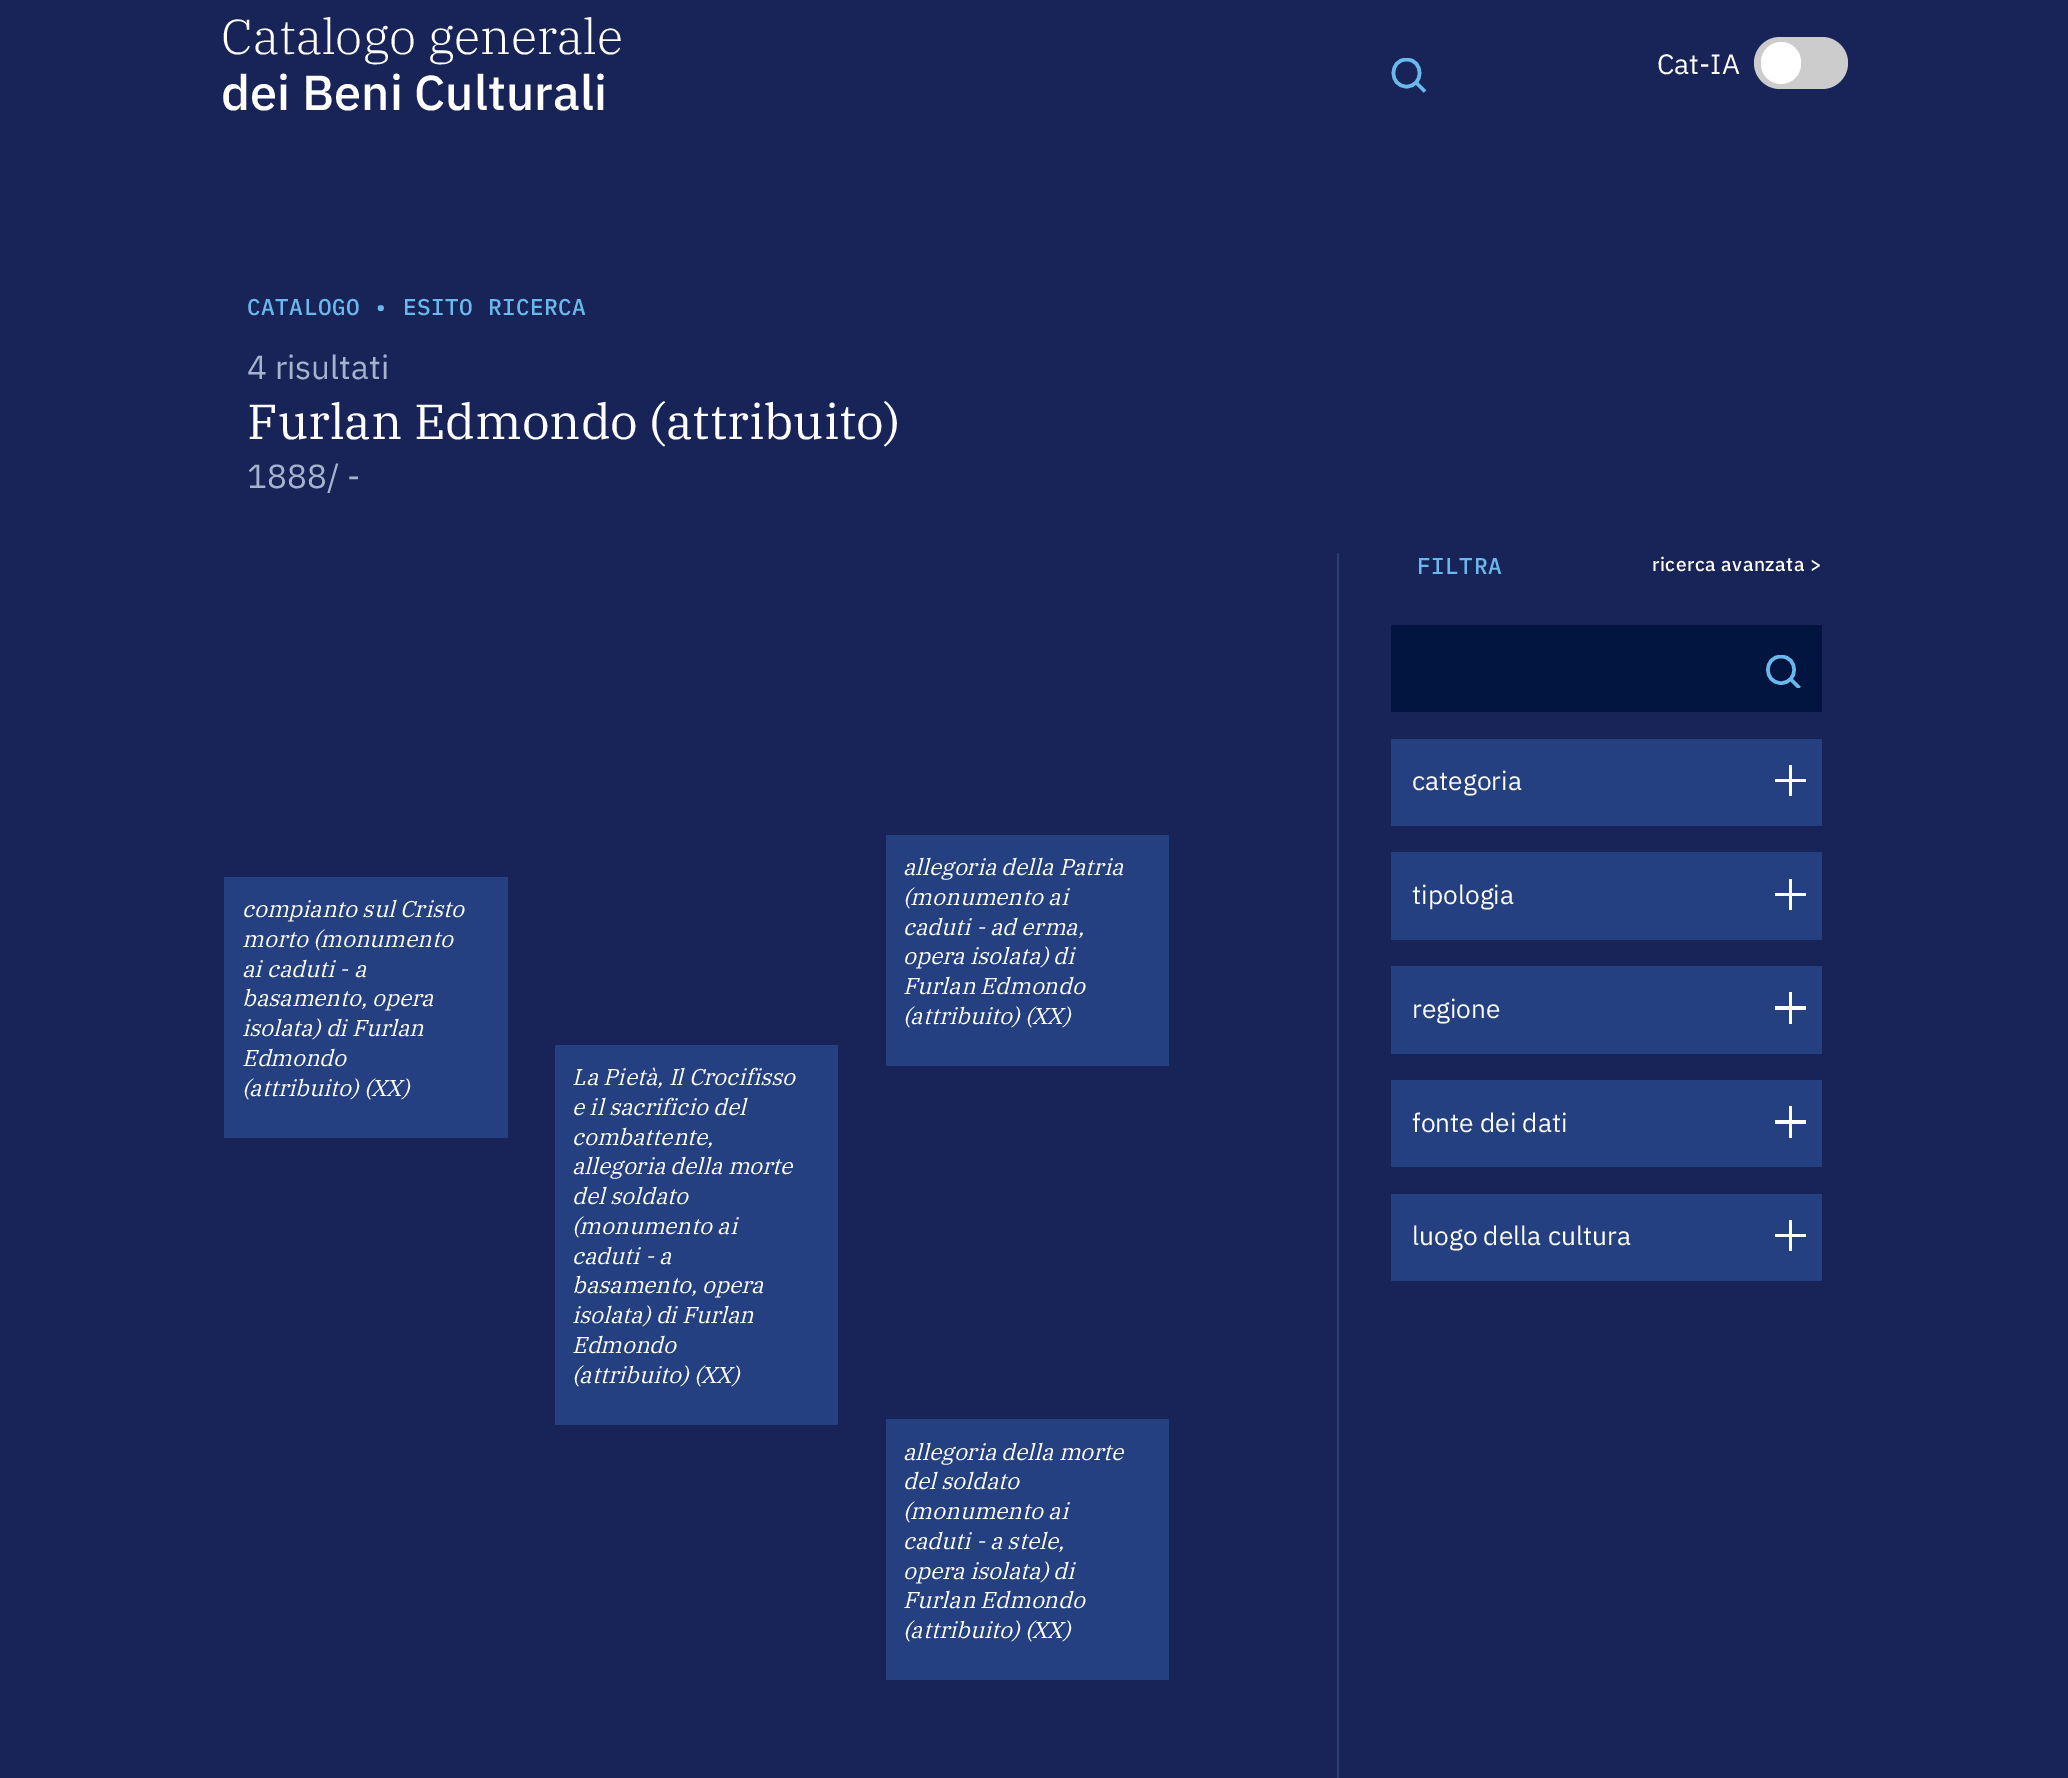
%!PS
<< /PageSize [2068 1778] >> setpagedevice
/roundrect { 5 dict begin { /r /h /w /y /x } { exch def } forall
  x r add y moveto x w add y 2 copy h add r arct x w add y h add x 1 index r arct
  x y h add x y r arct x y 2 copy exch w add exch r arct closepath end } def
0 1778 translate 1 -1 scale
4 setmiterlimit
0.094 0.137 0.345 setrgbcolor
0 0 2068 1778 rectfill
/IBMPlexSerif-Light [49 0 0 -49 0 0] selectfont
1 setgray
221 54 moveto (Catalogo generale) show
/IBMPlexSans-Medium [49 0 0 -49 0 0] selectfont
221 110 moveto (dei Beni Culturali) show
gsave
1391 58 35 35 rectclip
0.412 0.725 0.925 setrgbcolor
3.5 setlinewidth
newpath 1406.5 86.5 moveto 1424 86.5 1424 59.5 1406.5 59.5 curveto 1389 59.5 1389 86.5 1406.5 86.5 curveto closepath stroke
grestore
0.412 0.725 0.925 setrgbcolor
3.5 setlinewidth
newpath 1416.5 83 moveto 1425 91.5 lineto stroke
/IBMPlexSans-Regular [28 0 0 -28 0 0] selectfont
1 setgray
1657 74 moveto (Cat-IA) show
0.8 setgray
1754 37 94 52 26 roundrect fill
1 setgray
1761 42 40 42 20 roundrect fill
/IBMPlexMono-Medium [22.75 0 0 -22.75 0 0] selectfont
0.412 0.725 0.925 setrgbcolor
247 315 moveto 0.5 0 (CATALOGO • ESITO RICERCA) ashow
/IBMPlexSans-Regular [33.25 0 0 -33.25 0 0] selectfont
0.655 0.698 0.8 setrgbcolor
247 379 moveto (4 risultati) show
/IBMPlexSerif-Regular [49 0 0 -49 0 0] selectfont
1 setgray
247 439 moveto (Furlan Edmondo \(attribuito\)) show
/IBMPlexSans-Regular [33.25 0 0 -33.25 0 0] selectfont
0.655 0.698 0.8 setrgbcolor
247 488 moveto (1888/ -) show
0.165 0.247 0.443 setrgbcolor
1337 553 2 1225 rectfill
0.141 0.251 0.502 setrgbcolor
224 877 284 261 rectfill
/IBMPlexSerif-Italic [22.75 0 0 -22.75 0 0] selectfont
1 setgray
242 917 moveto (compianto sul Cristo) show
242 947 moveto (morto \(monumento) show
242 977 moveto (ai caduti - a) show
242 1006 moveto (basamento, opera) show
242 1036 moveto (isolata\) di Furlan) show
242 1066 moveto (Edmondo) show
242 1096 moveto (\(attribuito\) \(XX\)) show
0.141 0.251 0.502 setrgbcolor
886 835 283 231 rectfill
1 setgray
903 875 moveto (allegoria della Patria) show
903 905 moveto (\(monumento ai) show
903 935 moveto (caduti - ad erma,) show
903 964 moveto (opera isolata\) di) show
903 994 moveto (Furlan Edmondo) show
903 1024 moveto (\(attribuito\) \(XX\)) show
0.141 0.251 0.502 setrgbcolor
555 1045 283 380 rectfill
1 setgray
572 1085 moveto (La Pietà, Il Crocifisso) show
572 1115 moveto (e il sacrificio del) show
572 1145 moveto (combattente,) show
572 1174 moveto (allegoria della morte) show
572 1204 moveto (del soldato) show
572 1234 moveto (\(monumento ai) show
572 1264 moveto (caduti - a) show
572 1293 moveto (basamento, opera) show
572 1323 moveto (isolata\) di Furlan) show
572 1353 moveto (Edmondo) show
572 1383 moveto (\(attribuito\) \(XX\)) show
0.141 0.251 0.502 setrgbcolor
886 1419 283 261 rectfill
1 setgray
903 1460 moveto (allegoria della morte) show
903 1489 moveto (del soldato) show
903 1519 moveto (\(monumento ai) show
903 1549 moveto (caduti - a stele,) show
903 1579 moveto (opera isolata\) di) show
903 1608 moveto (Furlan Edmondo) show
903 1638 moveto (\(attribuito\) \(XX\)) show
/IBMPlexMono-Medium [22.75 0 0 -22.75 0 0] selectfont
0.412 0.725 0.925 setrgbcolor
1417 574 moveto 0.5 0 (FILTRA) ashow
/IBMPlexSans-Medium [19.25 0 0 -19.25 0 0] selectfont
1 setgray
1652 571 moveto 0.5 0 (ricerca avanzata >) ashow
0.008 0.078 0.251 setrgbcolor
1391 625 431 87 rectfill
gsave
1766 655 35 33 rectclip
0.412 0.725 0.925 setrgbcolor
newpath 1781 683 moveto 1798.5 683 1798.5 656.5 1781 656.5 curveto 1763.5 656.5 1763.5 683 1781 683 curveto closepath 1791 679.5 moveto 1799.5 688 lineto stroke
grestore
0.141 0.251 0.502 setrgbcolor
1391 739 431 87 rectfill
1 setgray
1775 779 31 3 rectfill
1789 765 3 31 rectfill
/IBMPlexSans-Regular [26.25 0 0 -26.25 0 0] selectfont
1412 790 moveto (categoria) show
0.141 0.251 0.502 setrgbcolor
1391 852 431 88 rectfill
1 setgray
1775 893 31 3 rectfill
1789 879 3 31 rectfill
1412 904 moveto (tipologia) show
0.141 0.251 0.502 setrgbcolor
1391 966 431 88 rectfill
1 setgray
1775 1006 31 4 rectfill
1789 992 3 32 rectfill
1412 1018 moveto (regione) show
0.141 0.251 0.502 setrgbcolor
1391 1080 431 87 rectfill
1 setgray
1775 1120 31 4 rectfill
1789 1106 3 32 rectfill
1412 1132 moveto (fonte dei dati) show
0.141 0.251 0.502 setrgbcolor
1391 1194 431 87 rectfill
1 setgray
1775 1234 31 3 rectfill
1789 1220 3 31 rectfill
1412 1245 moveto (luogo della cultura) show
showpage
